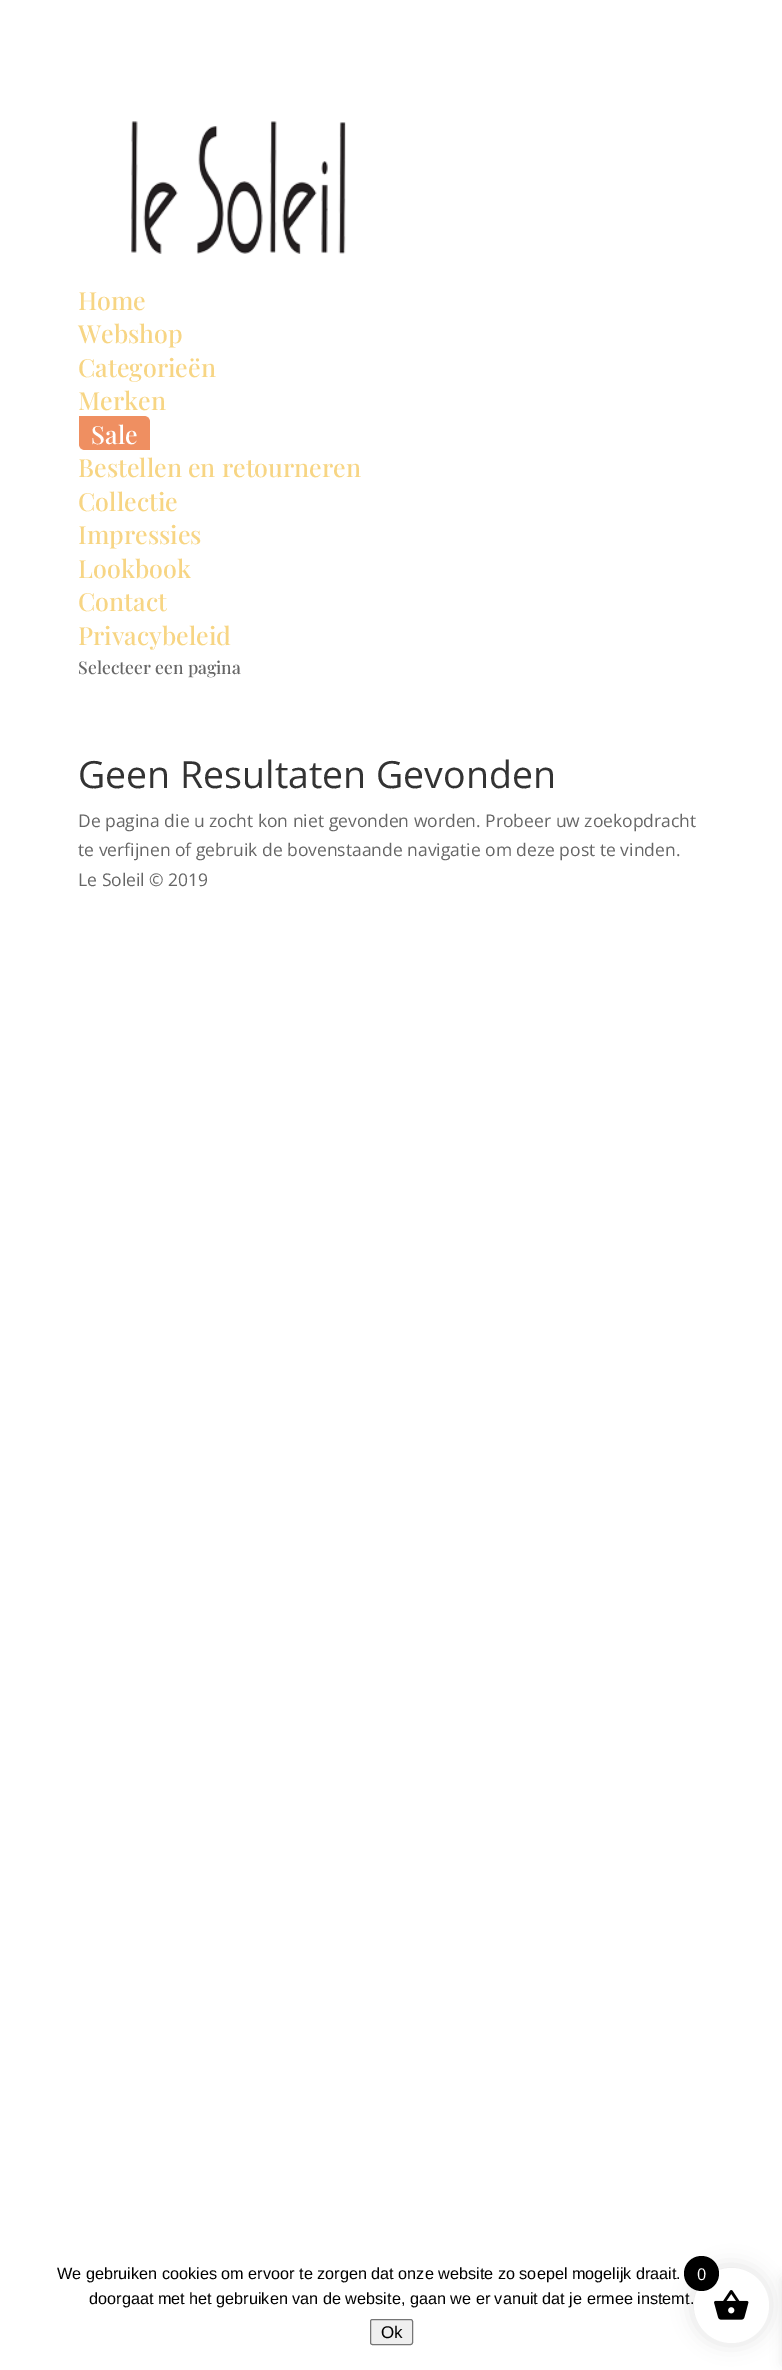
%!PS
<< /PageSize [782 2370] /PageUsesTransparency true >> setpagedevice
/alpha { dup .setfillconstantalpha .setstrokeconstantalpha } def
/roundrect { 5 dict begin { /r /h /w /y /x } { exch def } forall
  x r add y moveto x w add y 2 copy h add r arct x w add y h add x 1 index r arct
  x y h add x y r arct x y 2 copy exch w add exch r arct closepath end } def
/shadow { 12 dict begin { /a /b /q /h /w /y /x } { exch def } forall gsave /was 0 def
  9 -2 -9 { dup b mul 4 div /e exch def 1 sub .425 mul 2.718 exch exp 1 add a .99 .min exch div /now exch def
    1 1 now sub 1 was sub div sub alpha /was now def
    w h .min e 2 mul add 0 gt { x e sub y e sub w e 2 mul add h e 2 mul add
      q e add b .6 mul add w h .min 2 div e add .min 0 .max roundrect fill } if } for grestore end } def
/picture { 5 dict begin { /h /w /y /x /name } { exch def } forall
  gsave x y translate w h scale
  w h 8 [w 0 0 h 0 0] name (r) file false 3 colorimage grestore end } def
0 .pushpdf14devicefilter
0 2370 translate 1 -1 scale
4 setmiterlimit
1 setgray
0 0 782 2370 rectfill
(img1.rgb) 131 121 215 133 picture
/PlayfairDisplay-Medium [25 0 0 -25 0 0] selectfont
0.969 0.835 0.518 setrgbcolor
78 310 moveto (Home) show
78 343 moveto (Webshop) show
78 377 moveto (Categorieën) show
78 410 moveto (Merken) show
0.937 0.561 0.38 setrgbcolor
newpath 79 416 moveto 144 416 lineto 147.5 416 150 418.5 150 422 curveto 150 450 lineto 85 450 lineto 81.5 450 79 447.5 79 444 curveto closepath fill
1 setgray
91 444 moveto (Sale) show
0.969 0.835 0.518 setrgbcolor
78 477 moveto (Bestellen en retourneren) show
78 511 moveto (Collectie) show
78 544 moveto (Impressies) show
78 578 moveto (Lookbook) show
78 611 moveto (Contact) show
78 645 moveto (Privacybeleid) show
/PlayfairDisplay-Medium [17.5 0 0 -17.5 0 0] selectfont
0.4 setgray
78 674 moveto (Selecteer een pagina) show
/OpenSans-Regular [37.5 0 0 -37.5 0 0] selectfont
0.2 setgray
78 788 moveto (Geen Resultaten Gevonden) show
/OpenSans-Regular [17.5 0 0 -17.5 0 0] selectfont
0.4 setgray
78 827 moveto (De pagina die u zocht kon niet gevonden worden. Probeer uw zoekopdracht) show
78 856 moveto (te verfijnen of gebruik de bovenstaande navigatie om deze post te vinden.) show
78 886 moveto (Le Soleil © 2019) show
/LiberationSans-Regular [16.25 0 0 -16.25 0 0] selectfont
0 setgray
57 2279 moveto (We gebruiken cookies om ervoor te zorgen dat onze website zo soepel mogelijk draait.) show
89 2304 moveto (doorgaat met het gebruiken van de website, gaan we er vanuit dat je ermee instemt.) show
0.937 setgray
370.5 2319.5 42 25 2 roundrect gsave fill grestore
0.463 setgray
stroke
/LiberationSans-Regular [17 0 0 -17 0 0] selectfont
0 setgray
381 2338 moveto (Ok) show
691 2265 80 80 40 9.5 0.1 shadow
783 2279 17 85 0 6 0.1 shadow
1 setgray
newpath 731.5 2305.5 37.5 0 360 arc closepath fill
(img2.rgb) 714 2290 35 30 picture
0 setgray
newpath 701.5 2273.5 17.5 0 360 arc closepath fill
/OpenSans-Regular [16.25 0 0 -16.25 0 0] selectfont
1 setgray
697 2280 moveto (0) show
.poppdf14devicefilter showpage
